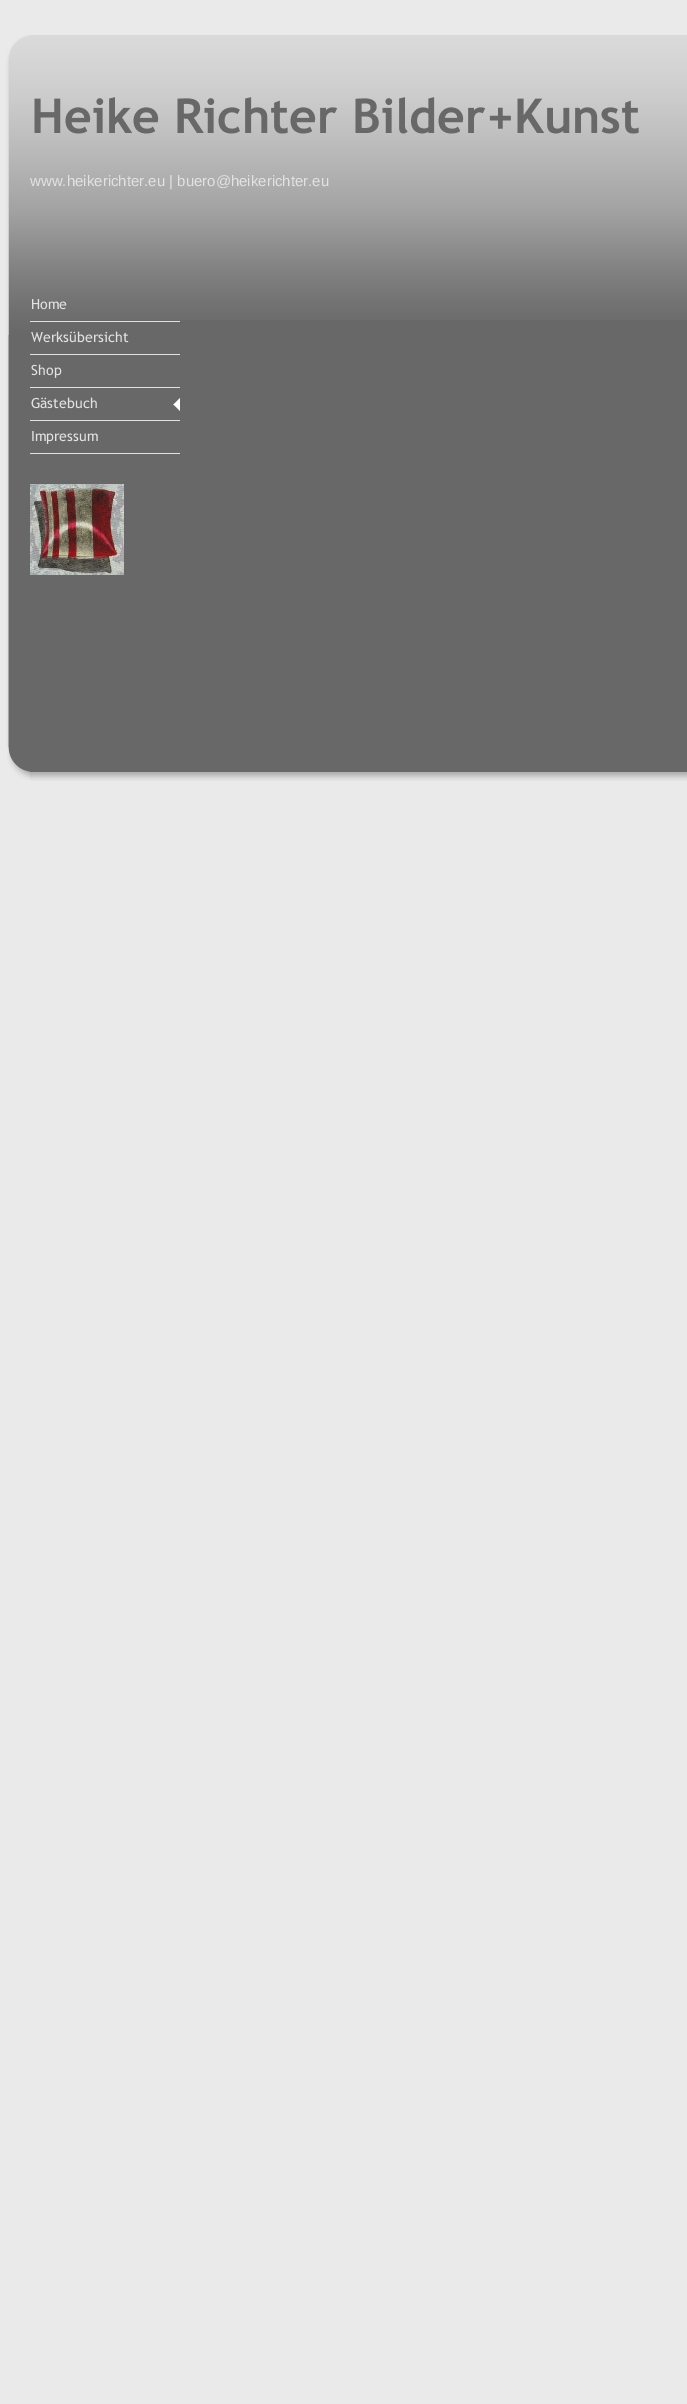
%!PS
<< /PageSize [687 2404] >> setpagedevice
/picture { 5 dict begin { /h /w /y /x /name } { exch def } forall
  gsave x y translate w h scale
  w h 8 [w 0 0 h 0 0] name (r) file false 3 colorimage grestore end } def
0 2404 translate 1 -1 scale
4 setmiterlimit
0.918 setgray
0 0 687 2404 rectfill
(img1.rgb) 6 335 24 412 picture
(img2.rgb) 6 35 24 300 picture
0.408 setgray
30 320 657 427 rectfill
(img3.rgb) 30 35 657 285 picture
(img4.rgb) 34 97 605 37 picture
/LiberationSans-Regular [15 0 0 -15 0 0] selectfont
0.886 setgray
30 186 moveto (www.heikerichter.eu | buero@heikerichter.eu) show
(img5.rgb) 30 299 150 23 picture
(img6.rgb) 30 331 150 24 picture
(img7.rgb) 30 364 150 24 picture
(img8.rgb) 30 397 150 24 picture
(img9.rgb) 30 431 150 23 picture
(img10.rgb) 30 484 94 91 picture
(img11.rgb) 7 747 23 33 picture
(img12.rgb) 30 747 657 34 picture
showpage
